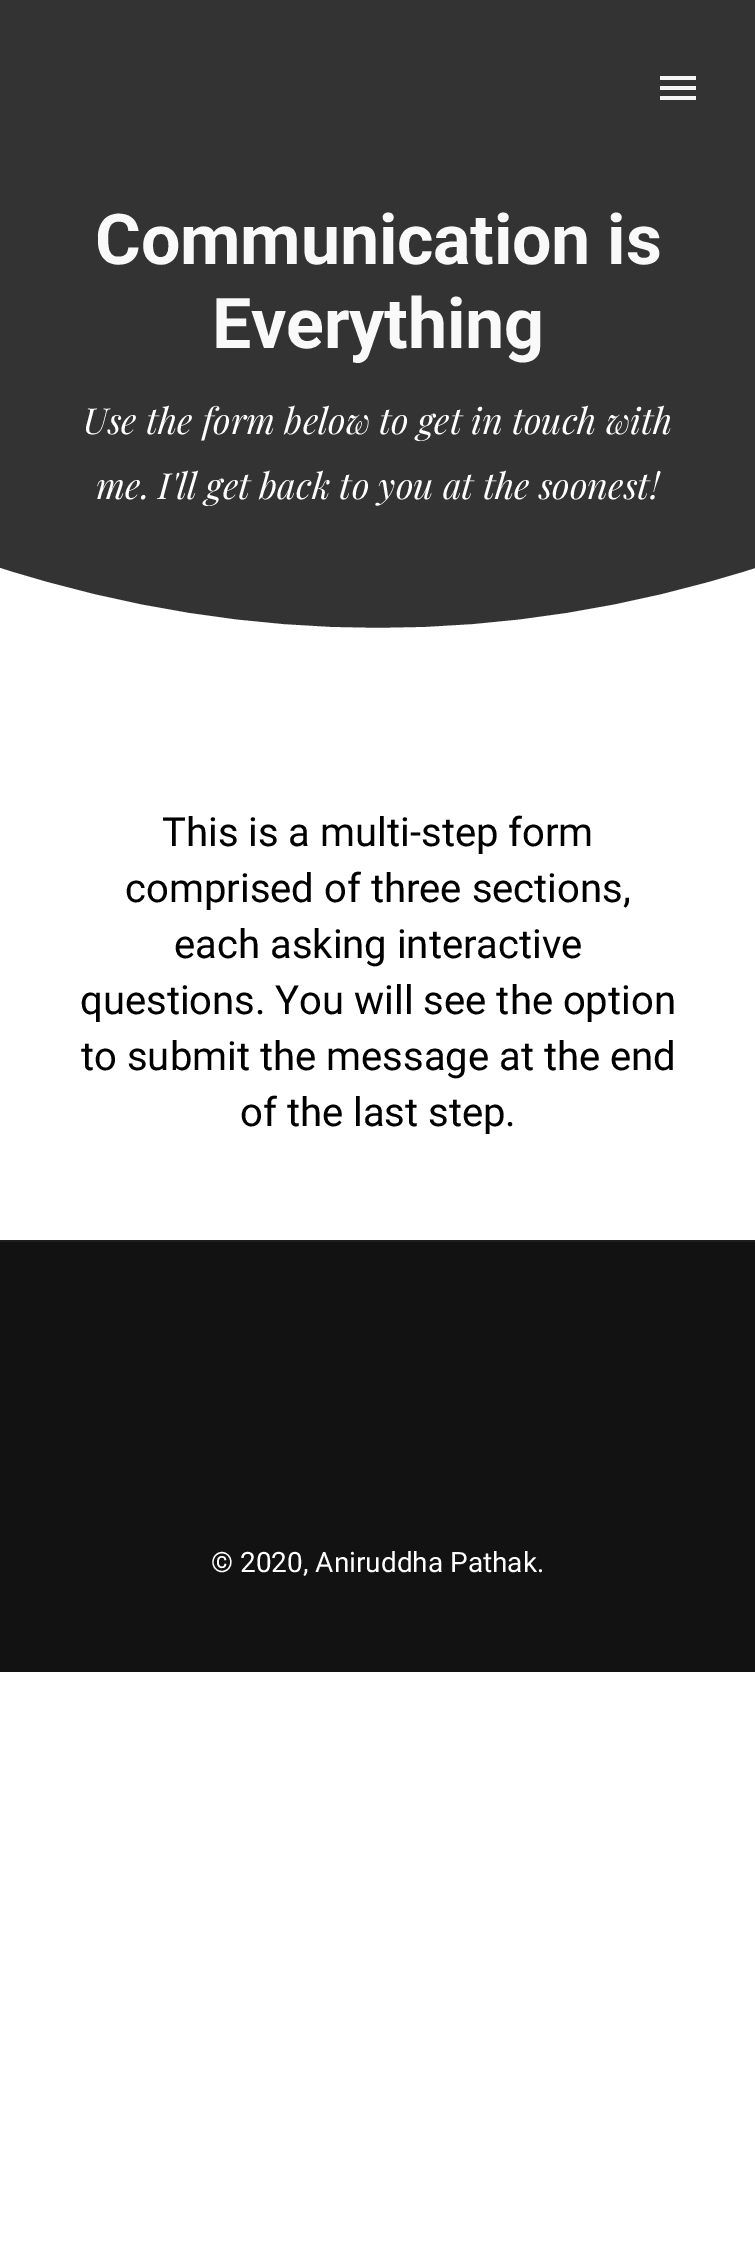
%!PS
<< /PageSize [755 2249] >> setpagedevice
0 2249 translate 1 -1 scale
4 setmiterlimit
1 setgray
0 0 755 2249 rectfill
0.2 setgray
0 0 755 628 rectfill
0.961 setgray
660 76 36 4 rectfill
660 86 36 4 rectfill
660 96 36 4 rectfill
/Roboto-Bold [70 0 0 -70 0 0] selectfont
0.976 setgray
95 264 moveto -0.25 0 (Communication is) ashow
212 348 moveto -0.25 0 (Everything) ashow
/PlayfairDisplay-Italic [36 0 0 -36 0 0] selectfont
1 setgray
83 434 moveto (Use the form below to get in touch with) show
96 499 moveto (me. I'll get back to you at the soonest!) show
newpath 0 568 moveto 251 648 505 648 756 568 curveto 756 648 lineto 0 648 lineto closepath eofill
/Roboto-Regular [40 0 0 -40 0 0] selectfont
0 setgray
162 846 moveto (This is a multi-step form) show
125 902 moveto (comprised of three sections,) show
174 958 moveto (each asking interactive) show
80 1014 moveto (questions. You will see the option) show
81 1070 moveto (to submit the message at the end) show
240 1126 moveto (of the last step.) show
0.071 setgray
0 1242 755 430 rectfill
0.118 setgray
0 1240 755 2 rectfill
/Roboto-Regular [28 0 0 -28 0 0] selectfont
1 setgray
211 1572 moveto (© 2020, Aniruddha Pathak.) show
showpage
